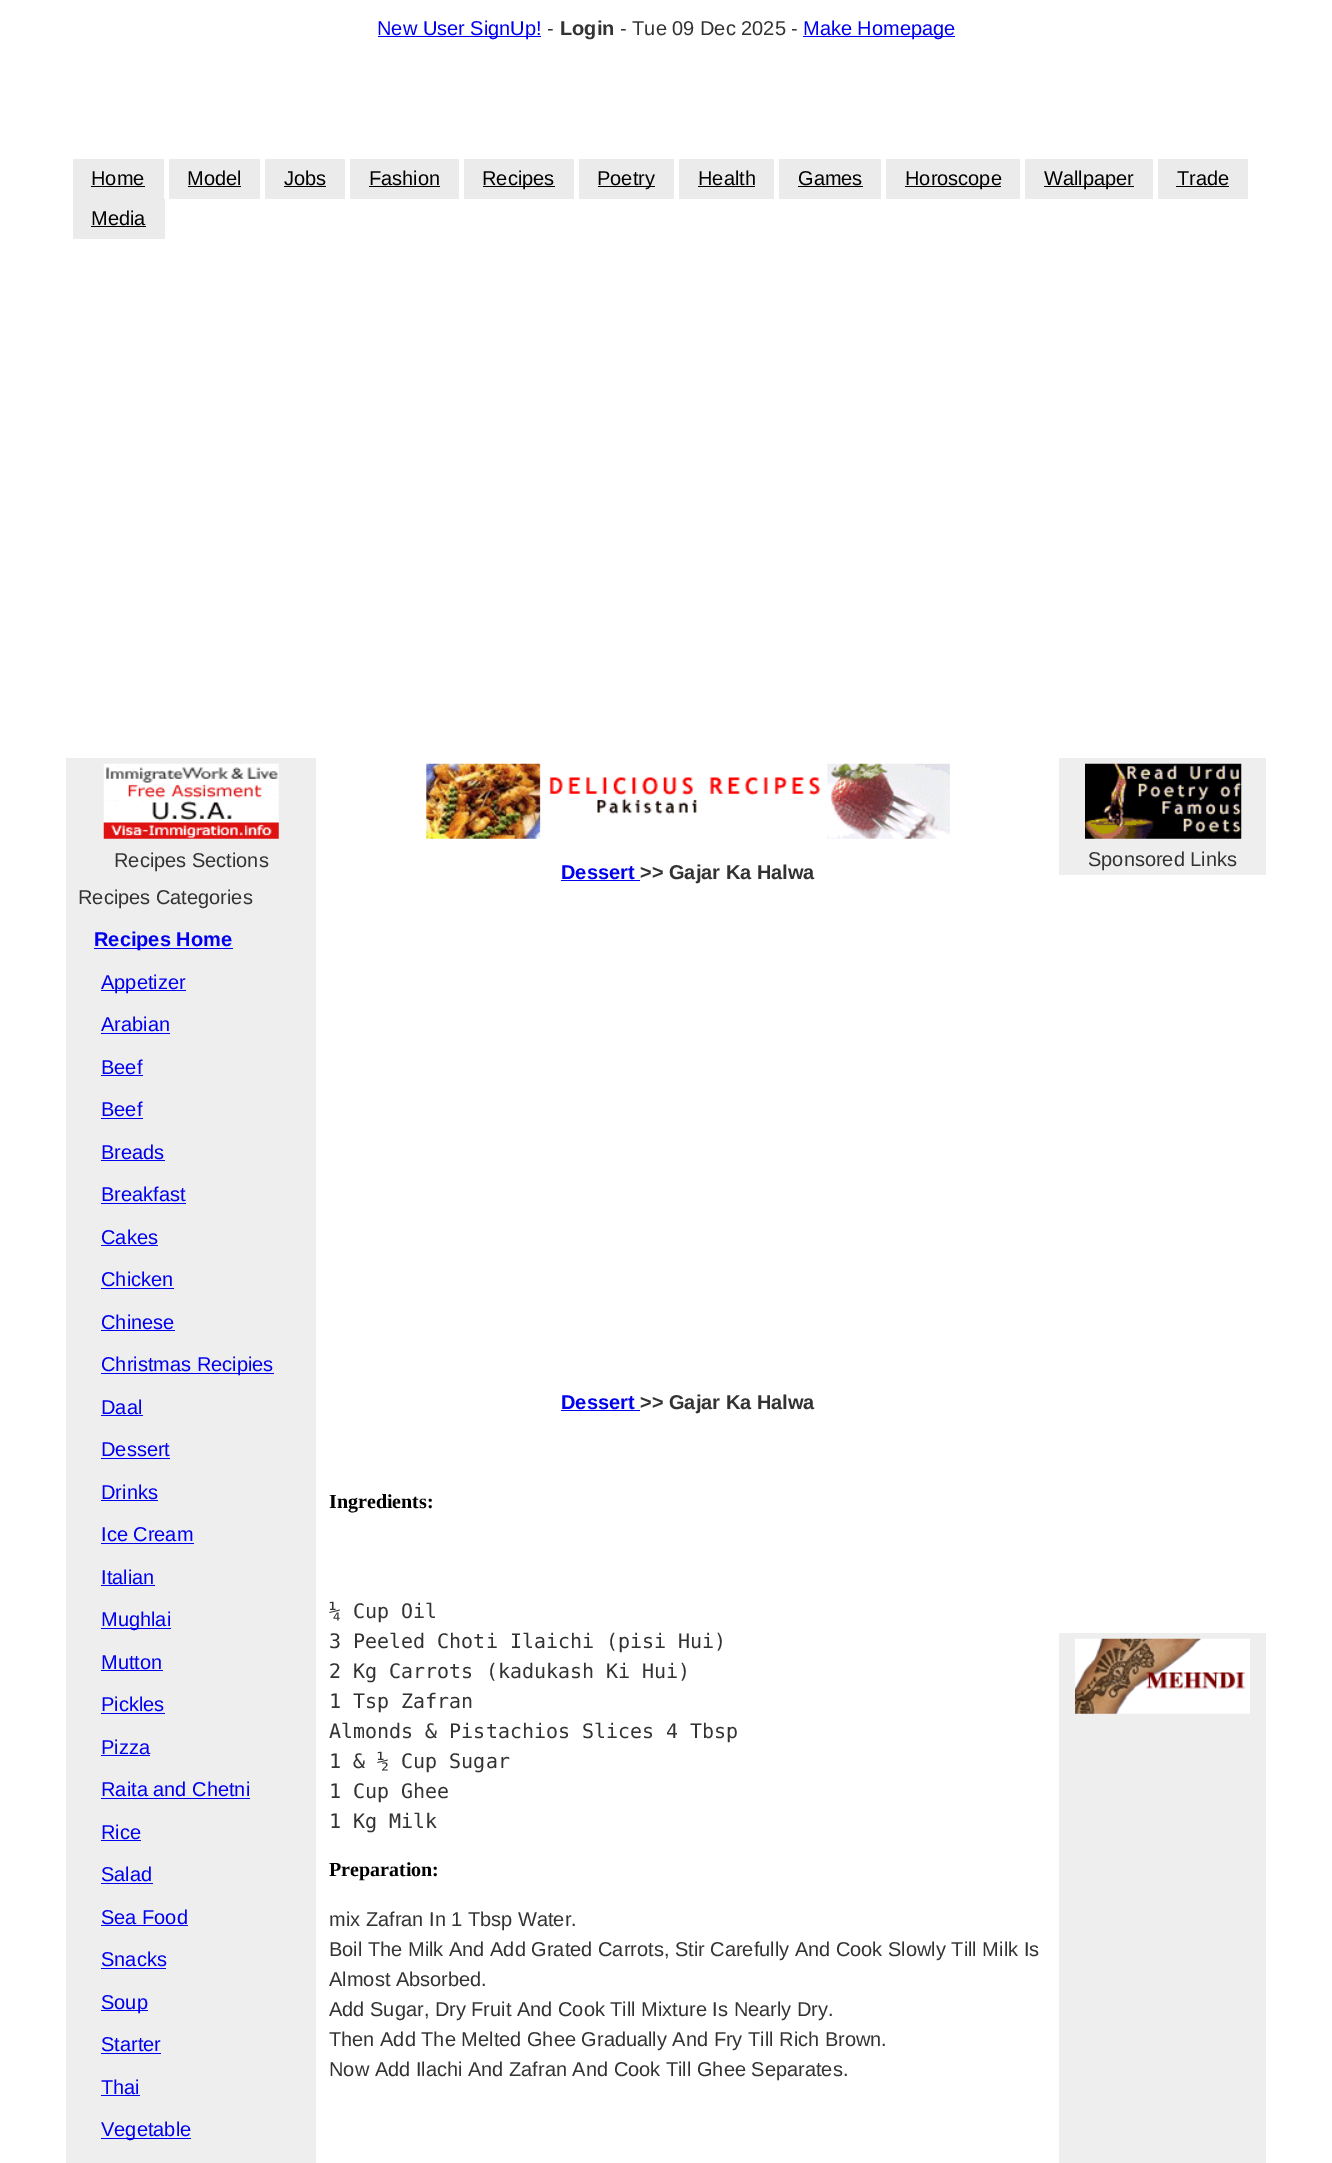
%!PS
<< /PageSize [1332 2163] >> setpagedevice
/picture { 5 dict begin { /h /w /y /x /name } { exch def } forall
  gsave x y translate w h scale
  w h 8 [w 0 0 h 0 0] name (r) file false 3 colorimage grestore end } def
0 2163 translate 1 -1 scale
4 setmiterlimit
1 setgray
0 0 1332 2163 rectfill
0 0 0.933 setrgbcolor
378 36 163 1 rectfill
/LiberationSans-Regular [20 0 0 -20 0 0] selectfont
377 35 moveto (New User SignUp!) show
0.2 setgray
547 35 moveto (-) show
/LiberationSans-Bold [20 0 0 -20 0 0] selectfont
560 35 moveto (Login) show
/LiberationSans-Regular [20 0 0 -20 0 0] selectfont
620 35 moveto (- Tue 09 Dec 2025 -) show
0 0 0.933 setrgbcolor
803 36 152 1 rectfill
803 35 moveto (Make Homepage) show
0.925 0.922 0.922 setrgbcolor
73 159 91 40 rectfill
0 setgray
91 185 moveto (Home) show
91 186 54 1 rectfill
0.925 0.922 0.922 setrgbcolor
169 159 91 40 rectfill
0 setgray
187 185 moveto (Model) show
188 186 53 1 rectfill
0.925 0.922 0.922 setrgbcolor
265 159 80 40 rectfill
0 setgray
284 185 moveto (Jobs) show
284 186 42 1 rectfill
0.925 0.922 0.922 setrgbcolor
350 159 109 40 rectfill
0 setgray
369 185 moveto (Fashion) show
369 186 71 1 rectfill
0.925 0.922 0.922 setrgbcolor
464 159 110 40 rectfill
0 setgray
483 186 72 1 rectfill
482 185 moveto (Recipes) show
0.925 0.922 0.922 setrgbcolor
579 159 95 40 rectfill
0 setgray
598 186 57 1 rectfill
597 185 moveto (Poetry) show
0.925 0.922 0.922 setrgbcolor
679 159 95 40 rectfill
0 setgray
698 185 moveto (Health) show
698 186 57 1 rectfill
0.925 0.922 0.922 setrgbcolor
779 159 102 40 rectfill
0 setgray
798 185 moveto (Games) show
798 186 65 1 rectfill
0.925 0.922 0.922 setrgbcolor
886 159 134 40 rectfill
0 setgray
905 186 96 1 rectfill
905 185 moveto (Horoscope) show
0.925 0.922 0.922 setrgbcolor
1025 159 128 40 rectfill
0 setgray
1044 186 90 1 rectfill
1044 185 moveto (Wallpaper) show
0.925 0.922 0.922 setrgbcolor
1158 159 90 40 rectfill
0 setgray
1177 185 moveto (Trade) show
1176 186 53 1 rectfill
0.925 0.922 0.922 setrgbcolor
73 199 92 40 rectfill
0 setgray
91 225 moveto (Media) show
91 226 55 1 rectfill
0.933 setgray
66 758 250 1405 rectfill
(img1.rgb) 103 763 176 76 picture
0.2 setgray
114 867 moveto (Recipes Sections) show
78 904 moveto (Recipes Categories) show
0 0 0.933 setrgbcolor
94 948 139 1 rectfill
/LiberationSans-Bold [20 0 0 -20 0 0] selectfont
94 946 moveto (Recipes Home) show
101 990 85 1 rectfill
/LiberationSans-Regular [20 0 0 -20 0 0] selectfont
101 989 moveto (Appetizer) show
101 1031 moveto (Arabian) show
101 1033 69 1 rectfill
101 1074 moveto (Beef) show
101 1075 42 1 rectfill
101 1116 moveto (Beef) show
101 1118 42 1 rectfill
101 1159 moveto (Breads) show
101 1160 64 1 rectfill
101 1201 moveto (Breakfast) show
101 1203 85 1 rectfill
101 1244 moveto (Cakes) show
101 1245 57 1 rectfill
101 1286 moveto (Chicken) show
101 1288 73 1 rectfill
101 1329 moveto (Chinese) show
101 1330 74 1 rectfill
101 1373 173 1 rectfill
101 1371 moveto (Christmas Recipies) show
101 1414 moveto (Daal) show
101 1415 42 1 rectfill
101 1456 moveto (Dessert) show
101 1458 69 1 rectfill
101 1499 moveto (Drinks) show
101 1500 57 1 rectfill
101 1541 moveto (Ice Cream) show
101 1543 93 1 rectfill
101 1584 moveto (Italian) show
101 1585 54 1 rectfill
101 1628 70 1 rectfill
101 1626 moveto (Mughlai) show
101 1669 moveto (Mutton) show
101 1670 62 1 rectfill
101 1711 moveto (Pickles) show
101 1713 64 1 rectfill
101 1754 moveto (Pizza) show
101 1755 49 1 rectfill
101 1796 moveto (Raita and Chetni) show
101 1798 149 1 rectfill
101 1839 moveto (Rice) show
101 1840 40 1 rectfill
101 1881 moveto (Salad) show
101 1883 52 1 rectfill
101 1924 moveto (Sea Food) show
101 1925 87 1 rectfill
101 1966 moveto (Snacks) show
101 1968 65 1 rectfill
101 2010 47 1 rectfill
101 2009 moveto (Soup) show
101 2051 moveto (Starter) show
101 2053 60 1 rectfill
101 2094 moveto (Thai) show
101 2095 39 1 rectfill
101 2138 90 1 rectfill
101 2136 moveto (Vegetable) show
(img2.rgb) 425 763 525 76 picture
/LiberationSans-Bold [20 0 0 -20 0 0] selectfont
561 879 moveto (Dessert) show
0.2 setgray
640 879 moveto (>> Gajar Ka Halwa) show
0 0 0.933 setrgbcolor
561 880 79 1 rectfill
561 1409 moveto (Dessert) show
0.2 setgray
640 1409 moveto (>> Gajar Ka Halwa) show
0 0 0.933 setrgbcolor
561 1410 79 1 rectfill
/LiberationSerif-Bold [20 0 0 -20 0 0] selectfont
0 setgray
329 1508 moveto (Ingredients:) show
/DejaVuSansMono-Regular [20 0 0 -20 0 0] selectfont
0.2 setgray
329 1618 moveto (¼ Cup Oil) show
329 1648 moveto (3 Peeled Choti Ilaichi \(pisi Hui\)) show
329 1678 moveto (2 Kg Carrots \(kadukash Ki Hui\)) show
329 1708 moveto (1 Tsp Zafran) show
329 1738 moveto (Almonds & Pistachios Slices 4 Tbsp) show
329 1768 moveto (1 & ½ Cup Sugar) show
329 1798 moveto (1 Cup Ghee) show
329 1828 moveto (1 Kg Milk) show
/LiberationSerif-Bold [20 0 0 -20 0 0] selectfont
0 setgray
329 1876 moveto (Preparation:) show
/LiberationSans-Regular [20 0 0 -20 0 0] selectfont
0.2 setgray
329 1926 moveto (mix Zafran In 1 Tbsp Water.) show
329 1956 moveto (Boil The Milk And Add Grated Carrots, Stir Carefully And Cook Slowly Till Milk Is) show
329 1986 moveto (Almost Absorbed.) show
329 2016 moveto (Add Sugar, Dry Fruit And Cook Till Mixture Is Nearly Dry.) show
329 2046 moveto (Then Add The Melted Ghee Gradually And Fry Till Rich Brown.) show
329 2076 moveto (Now Add Ilachi And Zafran And Cook Till Ghee Separates.) show
0.933 setgray
1059 758 207 1405 rectfill
(img3.rgb) 1085 763 157 76 picture
0.2 setgray
1088 866 moveto (Sponsored Links) show
1 setgray
1059 875 207 758 rectfill
(img4.rgb) 1075 1638 175 76 picture
showpage
